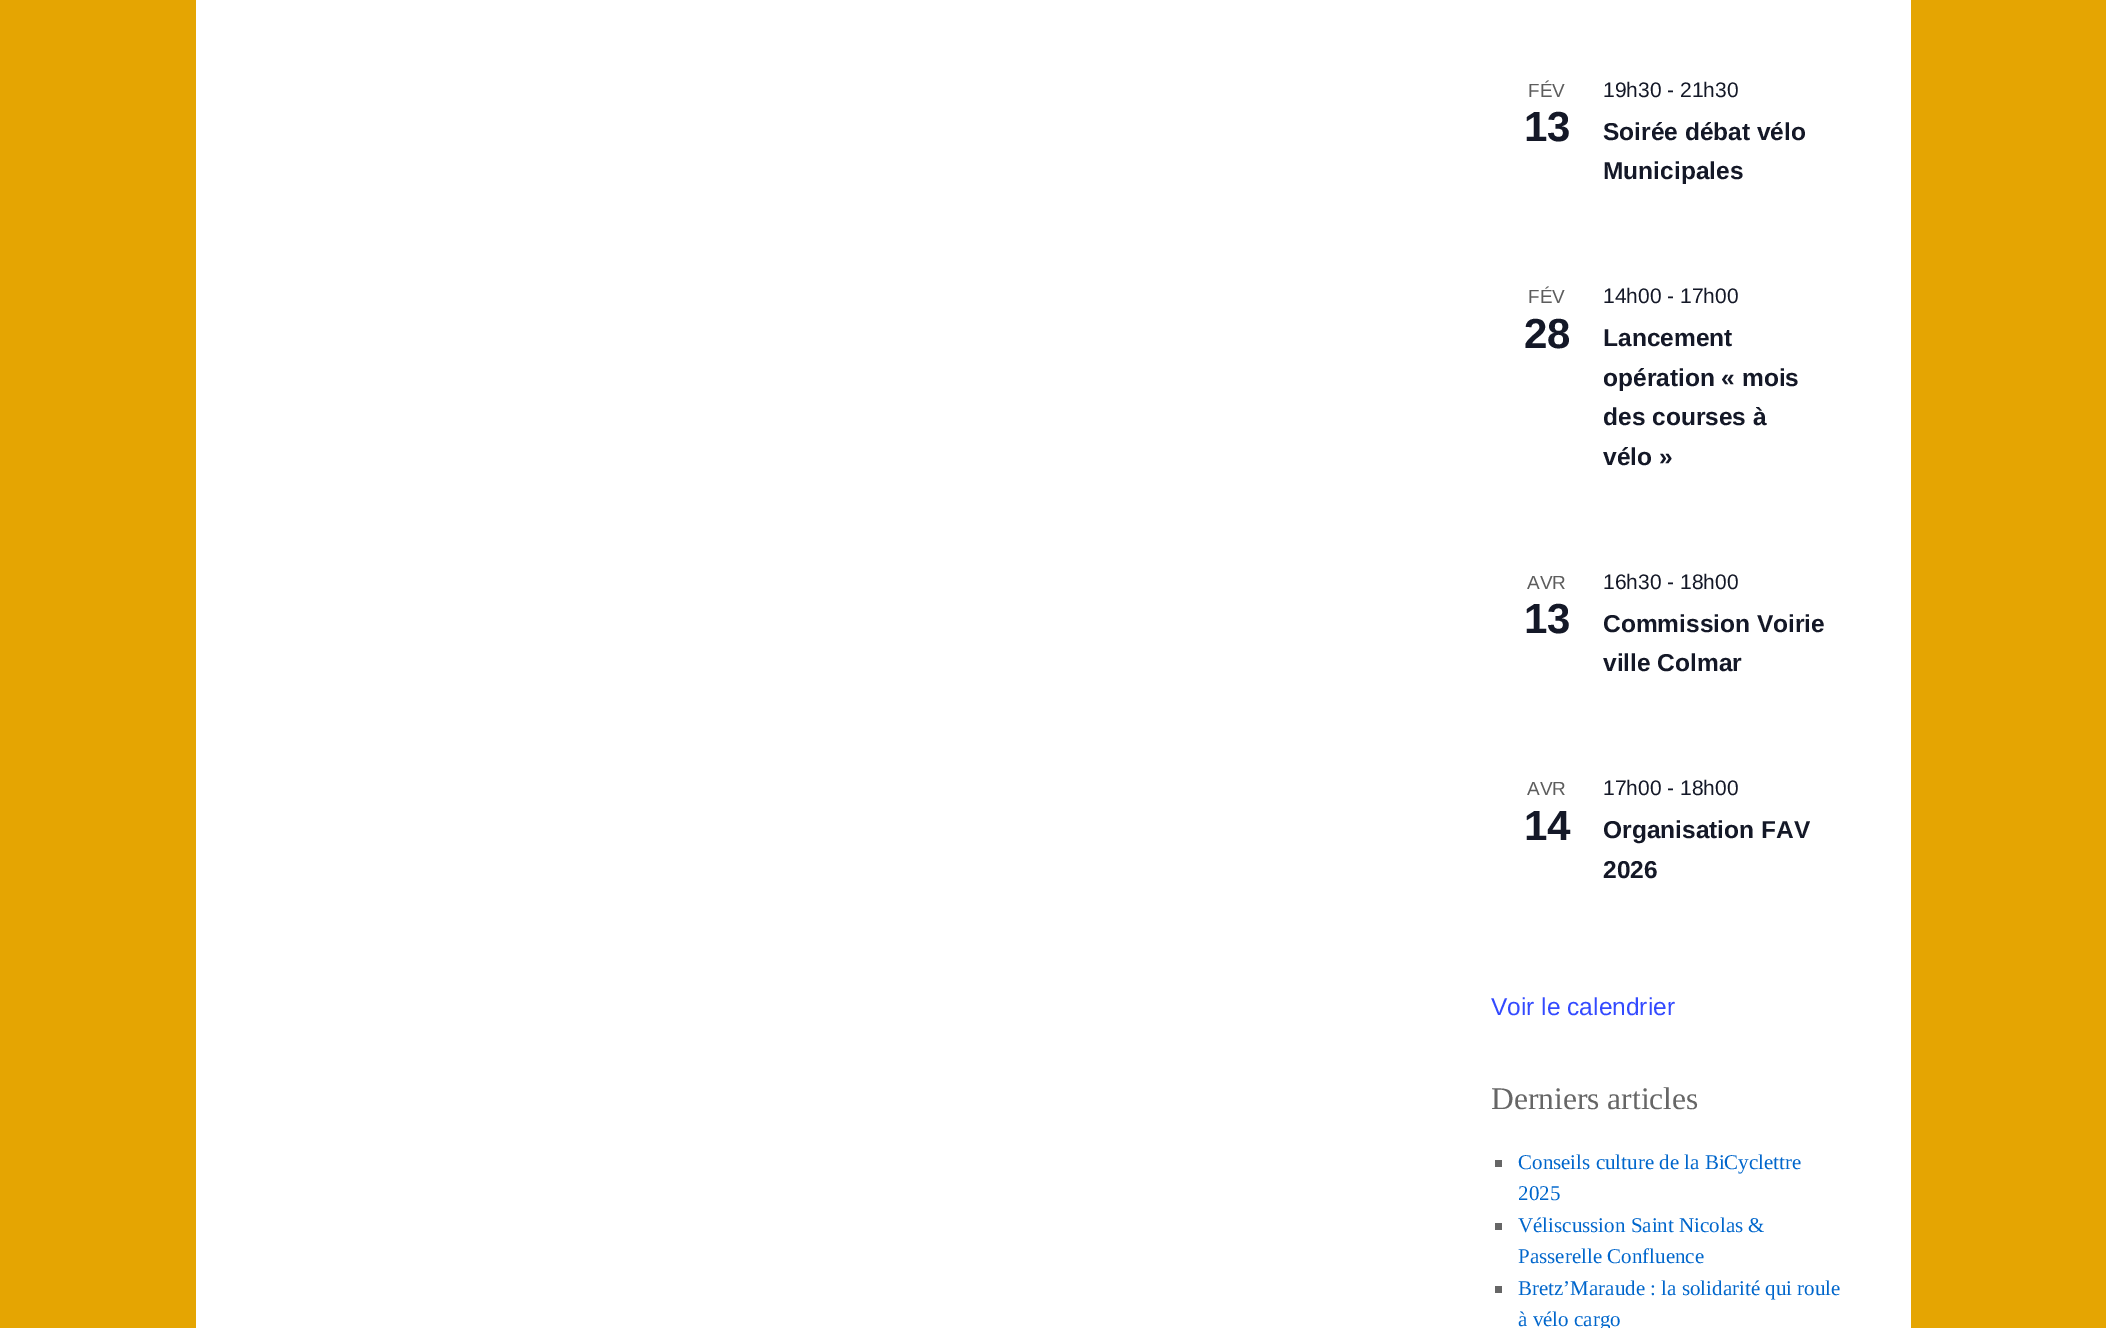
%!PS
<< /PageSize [2106 1328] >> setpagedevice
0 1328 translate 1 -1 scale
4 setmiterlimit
0.898 0.647 0.008 setrgbcolor
0 0 2106 1328 rectfill
1 setgray
196 0 1715 1328 rectfill
/LiberationSans-Regular [19 0 0 -19 0 0] selectfont
0.365 setgray
1528 97 moveto (FÉV) show
/LiberationSans-Bold [42 0 0 -42 0 0] selectfont
0.078 0.094 0.153 setrgbcolor
1524 141 moveto (13) show
/LiberationSans-Regular [21 0 0 -21 0 0] selectfont
1603 97 moveto (19h30 - 21h30) show
/LiberationSans-Bold [24.5 0 0 -24.5 0 0] selectfont
1603 140 moveto (Soirée débat vélo) show
1603 179 moveto (Municipales) show
/LiberationSans-Regular [19 0 0 -19 0 0] selectfont
0.365 setgray
1528 303 moveto (FÉV) show
/LiberationSans-Bold [42 0 0 -42 0 0] selectfont
0.078 0.094 0.153 setrgbcolor
1524 348 moveto (28) show
/LiberationSans-Regular [21 0 0 -21 0 0] selectfont
1603 303 moveto (14h00 - 17h00) show
/LiberationSans-Bold [24.5 0 0 -24.5 0 0] selectfont
1603 346 moveto (Lancement) show
1603 386 moveto (opération « mois) show
1603 425 moveto (des courses à) show
1603 465 moveto (vélo ») show
/LiberationSans-Regular [19 0 0 -19 0 0] selectfont
0.365 setgray
1527 589 moveto (AVR) show
/LiberationSans-Bold [42 0 0 -42 0 0] selectfont
0.078 0.094 0.153 setrgbcolor
1524 633 moveto (13) show
/LiberationSans-Regular [21 0 0 -21 0 0] selectfont
1603 589 moveto (16h30 - 18h00) show
/LiberationSans-Bold [24.5 0 0 -24.5 0 0] selectfont
1603 632 moveto (Commission Voirie) show
1603 671 moveto (ville Colmar) show
/LiberationSans-Regular [19 0 0 -19 0 0] selectfont
0.365 setgray
1527 795 moveto (AVR) show
/LiberationSans-Bold [42 0 0 -42 0 0] selectfont
0.078 0.094 0.153 setrgbcolor
1524 840 moveto (14) show
/LiberationSans-Regular [21 0 0 -21 0 0] selectfont
1603 795 moveto (17h00 - 18h00) show
/LiberationSans-Bold [24.5 0 0 -24.5 0 0] selectfont
1603 838 moveto (Organisation FAV) show
1603 878 moveto (2026) show
/LiberationSans-Regular [24.5 0 0 -24.5 0 0] selectfont
0.2 0.29 1 setrgbcolor
1491 1015 moveto (Voir le calendrier) show
/LiberationSerif-Regular [31.5 0 0 -31.5 0 0] selectfont
0.4 setgray
1491 1109 moveto (Derniers articles) show
1495 1160 7 7 rectfill
/LiberationSerif-Regular [21 0 0 -21 0 0] selectfont
0 0.4 0.8 setrgbcolor
1518 1169 moveto (Conseils culture de la BiCyclettre) show
1518 1200 moveto (2025) show
0.4 setgray
1495 1223 7 7 rectfill
0 0.4 0.8 setrgbcolor
1518 1232 moveto (Véliscussion Saint Nicolas &) show
1518 1263 moveto (Passerelle Confluence) show
0.4 setgray
1495 1286 7 7 rectfill
0 0.4 0.8 setrgbcolor
1518 1295 moveto (Bretz’Maraude : la solidarité qui roule) show
1518 1326 moveto (à vélo cargo) show
showpage
